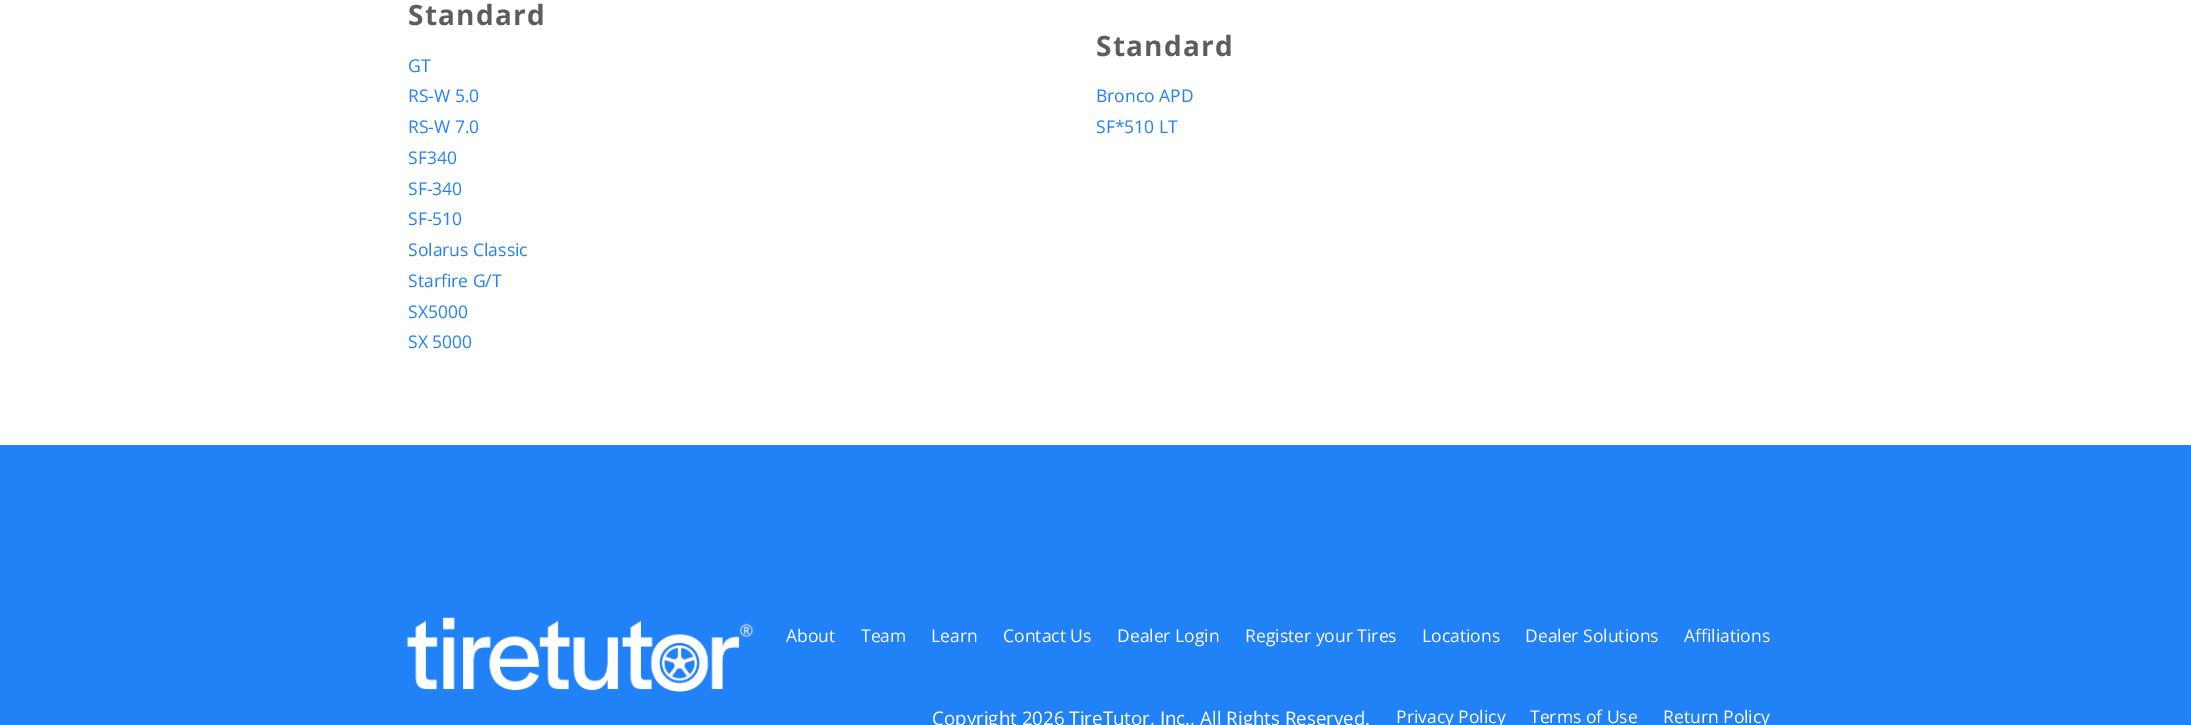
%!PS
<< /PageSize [2191 725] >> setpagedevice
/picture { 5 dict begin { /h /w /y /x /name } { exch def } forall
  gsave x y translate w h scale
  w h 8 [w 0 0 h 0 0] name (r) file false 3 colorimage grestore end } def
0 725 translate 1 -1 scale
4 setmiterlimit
1 setgray
0 0 2191 725 rectfill
/OpenSans-Bold [28 0 0 -28 0 0] selectfont
0.365 0.365 0.38 setrgbcolor
408 25 moveto 1.25 0 (Standard) ashow
/OpenSans-Regular [17.5 0 0 -17.5 0 0] selectfont
0.129 0.506 0.969 setrgbcolor
408 72 moveto (GT) show
408 102 moveto (RS-W 5.0) show
408 133 moveto (RS-W 7.0) show
408 164 moveto (SF340) show
408 195 moveto (SF-340) show
408 225 moveto (SF-510) show
408 256 moveto (Solarus Classic) show
408 287 moveto (Starfire G/T) show
408 318 moveto (SX5000) show
408 348 moveto (SX 5000) show
/OpenSans-Bold [28 0 0 -28 0 0] selectfont
0.365 0.365 0.38 setrgbcolor
1096 56 moveto 1.25 0 (Standard) ashow
/OpenSans-Regular [17.5 0 0 -17.5 0 0] selectfont
0.129 0.506 0.969 setrgbcolor
1096 102 moveto (Bronco APD) show
1096 133 moveto (SF*510 LT) show
0 445 2191 280 rectfill
(img1.rgb) 406 617 348 75 picture
1 setgray
786 642 moveto (About) show
861 642 moveto (Team) show
931 642 moveto (Learn) show
1003 642 moveto (Contact Us) show
1117 642 moveto (Dealer Login) show
1245 642 moveto (Register your Tires) show
1422 642 moveto (Locations) show
1525 642 moveto (Dealer Solutions) show
1684 642 moveto (Affiliations) show
/OpenSans-Regular [18.75 0 0 -18.75 0 0] selectfont
932 725 moveto (Copyright 2026 TireTutor, Inc., All Rights Reserved.) show
/OpenSans-Regular [17.5 0 0 -17.5 0 0] selectfont
1396 723 moveto (Privacy Policy) show
1530 723 moveto (Terms of Use) show
1663 723 moveto (Return Policy) show
showpage
